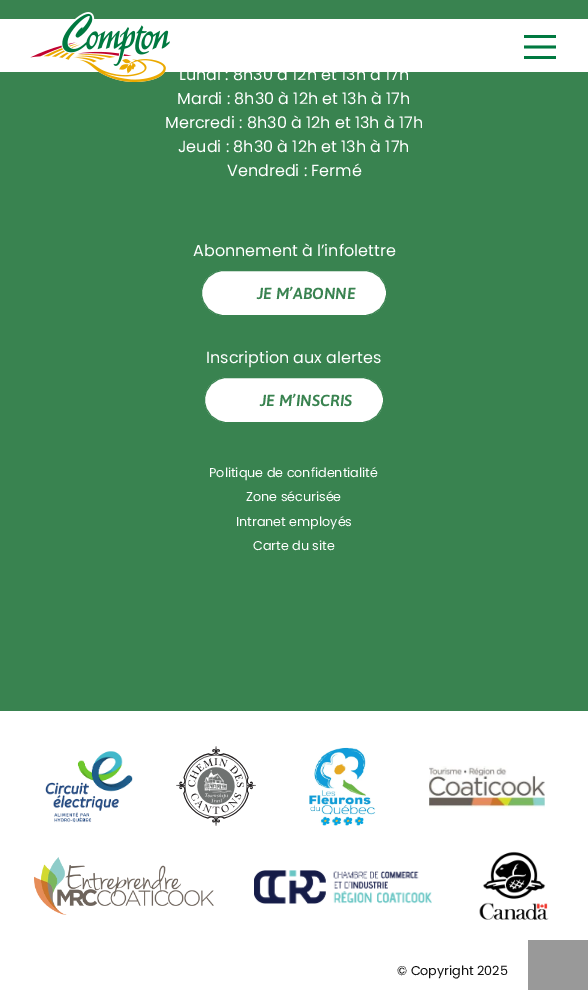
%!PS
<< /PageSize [588 990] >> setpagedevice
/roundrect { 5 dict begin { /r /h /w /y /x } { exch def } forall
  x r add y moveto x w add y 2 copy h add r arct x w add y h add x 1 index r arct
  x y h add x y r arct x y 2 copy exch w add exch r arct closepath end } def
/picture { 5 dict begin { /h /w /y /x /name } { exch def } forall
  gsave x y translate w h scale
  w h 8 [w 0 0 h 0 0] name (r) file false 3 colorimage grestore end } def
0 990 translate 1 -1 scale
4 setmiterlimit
1 setgray
0 0 588 990 rectfill
0.224 0.514 0.314 setrgbcolor
0 0 588 711 rectfill
1 setgray
0 19 588 53 rectfill
(img1.rgb) 30 12 140 70 picture
0 0.475 0.251 setrgbcolor
2.7 setlinewidth
2 setlinecap
newpath 525.5 36.5 moveto 554.5 36.5 lineto 525.5 47 moveto 554.5 47 lineto 525.5 57.5 moveto 554.5 57.5 lineto stroke
/Poppins-Regular [16 0 0 -16 0 0] selectfont
1 setgray
179 80 moveto (Lundi : 8h30 à 12h et 13h à 17h) show
177 104 moveto (Mardi : 8h30 à 12h et 13h à 17h) show
165 128 moveto (Mercredi : 8h30 à 12h et 13h à 17h) show
178 152 moveto (Jeudi : 8h30 à 12h et 13h à 17h) show
227 176 moveto (Vendredi : Fermé) show
193 256 moveto (Abonnement à l’infolettre) show
201.5 270.5 185 45 22.5 roundrect gsave fill grestore
0.224 0.514 0.314 setrgbcolor
1 setlinewidth
0 setlinecap
stroke
/Asap-SemiBoldItalic [16 0 0 -16 0 0] selectfont
257 299 moveto (JE M’ABONNE) show
/Poppins-Regular [16 0 0 -16 0 0] selectfont
1 setgray
206 363 moveto (Inscription aux alertes) show
204.5 377.5 179 45 22.5 roundrect gsave fill grestore
0.224 0.514 0.314 setrgbcolor
stroke
/Asap-SemiBoldItalic [16 0 0 -16 0 0] selectfont
260 406 moveto (JE M’INSCRIS) show
/Poppins-Regular [12.75 0 0 -12.75 0 0] selectfont
1 setgray
209 477 moveto (Politique de confidentialité) show
246 501 moveto (Zone sécurisée) show
236 526 moveto (Intranet employés) show
253 550 moveto (Carte du site) show
(img2.rgb) 45 751 88 72 picture
(img3.rgb) 176 746 80 80 picture
(img4.rgb) 309 747 67 79 picture
(img5.rgb) 429 766 116 43 picture
(img6.rgb) 34 857 180 58 picture
(img7.rgb) 254 870 178 34 picture
(img8.rgb) 479 851 70 69 picture
0.067 setgray
397 975 moveto (© Copyright 2025) show
0.6 setgray
528 940 60 50 rectfill
showpage
